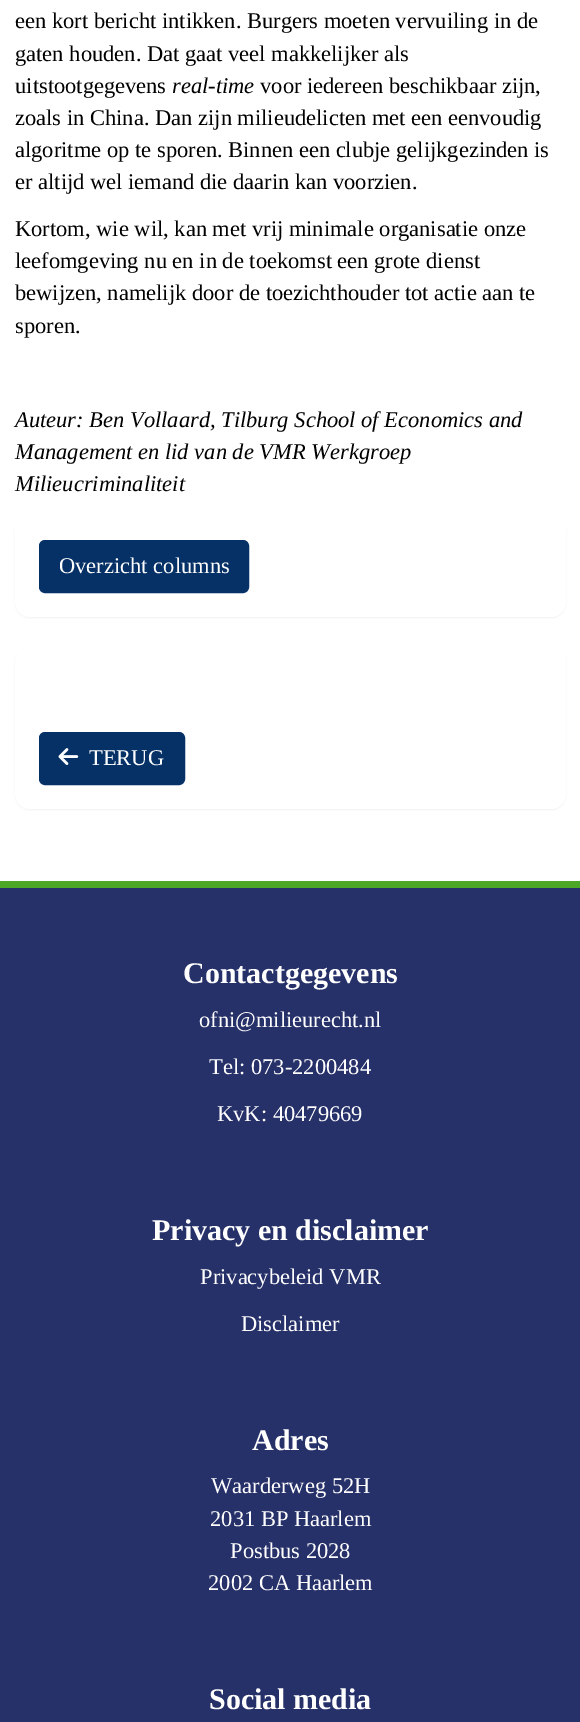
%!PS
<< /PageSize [580 1722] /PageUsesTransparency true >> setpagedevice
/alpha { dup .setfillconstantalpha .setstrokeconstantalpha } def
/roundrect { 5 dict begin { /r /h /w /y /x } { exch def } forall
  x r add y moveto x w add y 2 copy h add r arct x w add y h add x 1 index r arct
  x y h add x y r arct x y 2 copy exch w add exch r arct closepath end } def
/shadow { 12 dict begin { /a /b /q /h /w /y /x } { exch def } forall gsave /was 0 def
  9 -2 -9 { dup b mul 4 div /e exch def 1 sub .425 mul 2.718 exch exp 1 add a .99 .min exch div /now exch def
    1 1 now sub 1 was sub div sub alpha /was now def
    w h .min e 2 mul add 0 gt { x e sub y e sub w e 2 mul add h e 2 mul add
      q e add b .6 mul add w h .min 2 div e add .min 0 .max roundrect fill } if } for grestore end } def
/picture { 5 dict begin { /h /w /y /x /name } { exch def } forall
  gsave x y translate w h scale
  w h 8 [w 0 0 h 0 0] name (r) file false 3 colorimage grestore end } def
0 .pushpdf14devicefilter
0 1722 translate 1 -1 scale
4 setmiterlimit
1 setgray
0 0 580 1722 rectfill
/LiberationSerif-Regular [22.5 0 0 -22.5 0 0] selectfont
0 setgray
15 28 moveto (een kort bericht intikken. Burgers moeten vervuiling in de) show
15 61 moveto (gaten houden. Dat gaat veel makkelijker als) show
15 93 moveto (uitstootgegevens) show
/LiberationSerif-Italic [22.5 0 0 -22.5 0 0] selectfont
172 93 moveto (real-time) show
/LiberationSerif-Regular [22.5 0 0 -22.5 0 0] selectfont
260 93 moveto (voor iedereen beschikbaar zijn,) show
15 125 moveto (zoals in China. Dan zijn milieudelicten met een eenvoudig) show
15 157 moveto (algoritme op te sporen. Binnen een clubje gelijkgezinden is) show
15 189 moveto (er altijd wel iemand die daarin kan voorzien.) show
15 236 moveto (Kortom, wie wil, kan met vrij minimale organisatie onze) show
15 268 moveto (leefomgeving nu en in de toekomst een grote dienst) show
15 300 moveto (bewijzen, namelijk door de toezichthouder tot actie aan te) show
15 333 moveto (sporen.) show
/LiberationSerif-Italic [22.5 0 0 -22.5 0 0] selectfont
15 427 moveto (Auteur: Ben Vollaard, Tilburg School of Economics and) show
15 459 moveto (Management en lid van de VMR Werkgroep) show
15 491 moveto (Milieucriminaliteit) show
15 518 551 100 15 1 0.05 shadow
1 setgray
15 516 551 101 15 roundrect fill
0.024 0.192 0.4 setrgbcolor
40 541 208 51 5 roundrect gsave fill grestore
2 setlinewidth
stroke
/LiberationSerif-Regular [22.5 0 0 -22.5 0 0] selectfont
1 setgray
59 573 moveto (Overzicht columns) show
0 setgray
15 648 551 162 15 1 0.05 shadow
1 setgray
15 647 551 162 15 roundrect fill
0.024 0.192 0.4 setrgbcolor
40 733 144 51 5 roundrect gsave fill grestore
stroke
(img1.rgb) 58 748 21 17 picture
1 setgray
89 765 moveto (TERUG) show
0.302 0.655 0.149 setrgbcolor
0 881 580 7 rectfill
0.149 0.188 0.412 setrgbcolor
0 888 580 834 rectfill
/LiberationSerif-Bold [30 0 0 -30 0 0] selectfont
1 setgray
183 983 moveto (Contactgegevens) show
/LiberationSerif-Regular [22.5 0 0 -22.5 0 0] selectfont
199 1027 moveto (ofni@milieurecht.nl) show
209 1074 moveto (Tel: 073-2200484) show
217 1121 moveto (KvK: 40479669) show
/LiberationSerif-Bold [30 0 0 -30 0 0] selectfont
152 1240 moveto (Privacy en disclaimer) show
/LiberationSerif-Regular [22.5 0 0 -22.5 0 0] selectfont
200 1284 moveto (Privacybeleid VMR) show
241 1331 moveto (Disclaimer) show
/LiberationSerif-Bold [30 0 0 -30 0 0] selectfont
252 1450 moveto (Adres) show
/LiberationSerif-Regular [22.5 0 0 -22.5 0 0] selectfont
211 1493 moveto (Waarderweg 52H) show
210 1526 moveto (2031 BP Haarlem) show
230 1558 moveto (Postbus 2028) show
208 1590 moveto (2002 CA Haarlem) show
/LiberationSerif-Bold [30 0 0 -30 0 0] selectfont
209 1709 moveto (Social media) show
.poppdf14devicefilter showpage
